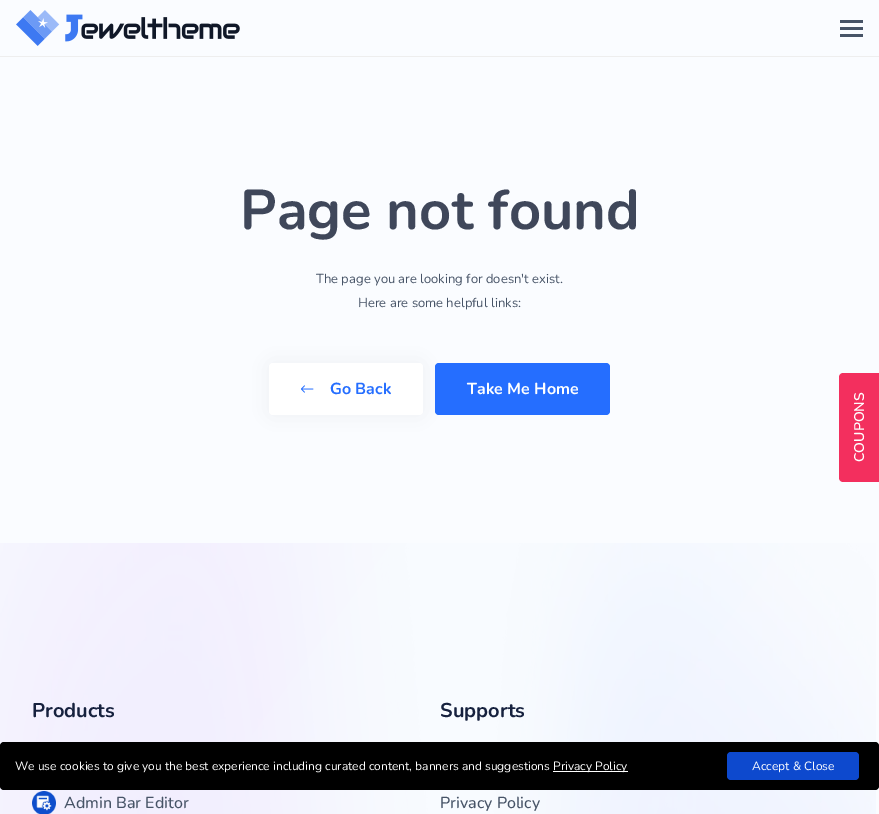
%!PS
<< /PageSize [879 814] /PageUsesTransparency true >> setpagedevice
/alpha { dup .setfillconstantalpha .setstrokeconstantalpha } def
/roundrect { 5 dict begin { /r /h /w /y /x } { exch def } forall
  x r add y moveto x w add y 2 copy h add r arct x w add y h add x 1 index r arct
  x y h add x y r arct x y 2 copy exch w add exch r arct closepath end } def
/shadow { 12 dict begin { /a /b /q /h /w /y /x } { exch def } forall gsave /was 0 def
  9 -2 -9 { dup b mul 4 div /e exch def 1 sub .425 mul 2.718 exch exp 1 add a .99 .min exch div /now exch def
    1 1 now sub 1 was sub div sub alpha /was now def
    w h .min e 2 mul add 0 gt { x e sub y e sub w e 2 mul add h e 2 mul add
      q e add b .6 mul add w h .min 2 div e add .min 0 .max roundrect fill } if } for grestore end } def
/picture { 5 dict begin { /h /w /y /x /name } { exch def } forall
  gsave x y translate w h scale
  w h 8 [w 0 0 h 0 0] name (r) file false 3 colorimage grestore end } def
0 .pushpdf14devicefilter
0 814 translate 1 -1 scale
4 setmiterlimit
0.98 0.988 1 setrgbcolor
0 0 879 814 rectfill
0.933 setgray
0 56 879 1 rectfill
(img1.rgb) 16 10 224 36 picture
0.278 0.329 0.404 setrgbcolor
840 20 23 3 rectfill
840 27 23 3 rectfill
840 34 23 3 rectfill
/Nunito-Bold [56 0 0 -56 0 0] selectfont
0.247 0.278 0.353 setrgbcolor
240 229 moveto (Page not found) show
/Nunito-Regular [13 0 0 -13 0 0] selectfont
0.278 0.329 0.404 setrgbcolor
316 283 moveto (The page you are looking for doesn't exist.) show
358 307 moveto (Here are some helpful links:) show
0.678 0.678 0.737 setrgbcolor
269 363 154 52 4 10 0.15 shadow
1 setgray
269 363 154 52 4 roundrect fill
(img2.rgb) 301 385 13 8 picture
/Nunito-Bold [16 0 0 -16 0 0] selectfont
0.145 0.431 1 setrgbcolor
330 394 moveto (Go Back) show
435 363 175 52 4 roundrect fill
1 setgray
467 394 moveto (Take Me Home) show
0.953 0.184 0.369 setrgbcolor
newpath 839 478 moveto 839 377 lineto 839 375 841 373 843 373 curveto 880 373 lineto 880 482 lineto 843 482 lineto 841 482 839 480 839 478 curveto closepath fill
/Nunito-SemiBold [14 0 0 -14 0 0] selectfont
1 setgray
gsave 864 462 translate -90 rotate 0 0 moveto (COUPONS) show grestore
(img3.rgb) 0 543 876 271 picture
/Nunito-Bold [20 0 0 -20 0 0] selectfont
0.086 0.129 0.243 setrgbcolor
32 717 moveto (Products) show
(img4.rgb) 32 791 24 23 picture
/Nunito-Medium [16 0 0 -16 0 0] selectfont
0.278 0.329 0.404 setrgbcolor
64 808 moveto (Admin Bar Editor) show
/Nunito-Bold [20 0 0 -20 0 0] selectfont
0.086 0.129 0.243 setrgbcolor
440 717 moveto (Supports) show
/Nunito-Medium [16 0 0 -16 0 0] selectfont
0.278 0.329 0.404 setrgbcolor
440 808 moveto (Privacy Policy) show
0 setgray
0 742 879 48 4 roundrect fill
/Nunito-Regular [12 0 0 -12 0 0] selectfont
1 setgray
15 770 moveto (We use cookies to give you the best experience including curated content, banners and suggestions) show
553 771 75 1 rectfill
553 770 moveto (Privacy Policy) show
0.051 0.286 0.808 setrgbcolor
727 752 132 28 4 roundrect fill
1 setgray
752 770 moveto (Accept & Close) show
.poppdf14devicefilter showpage
